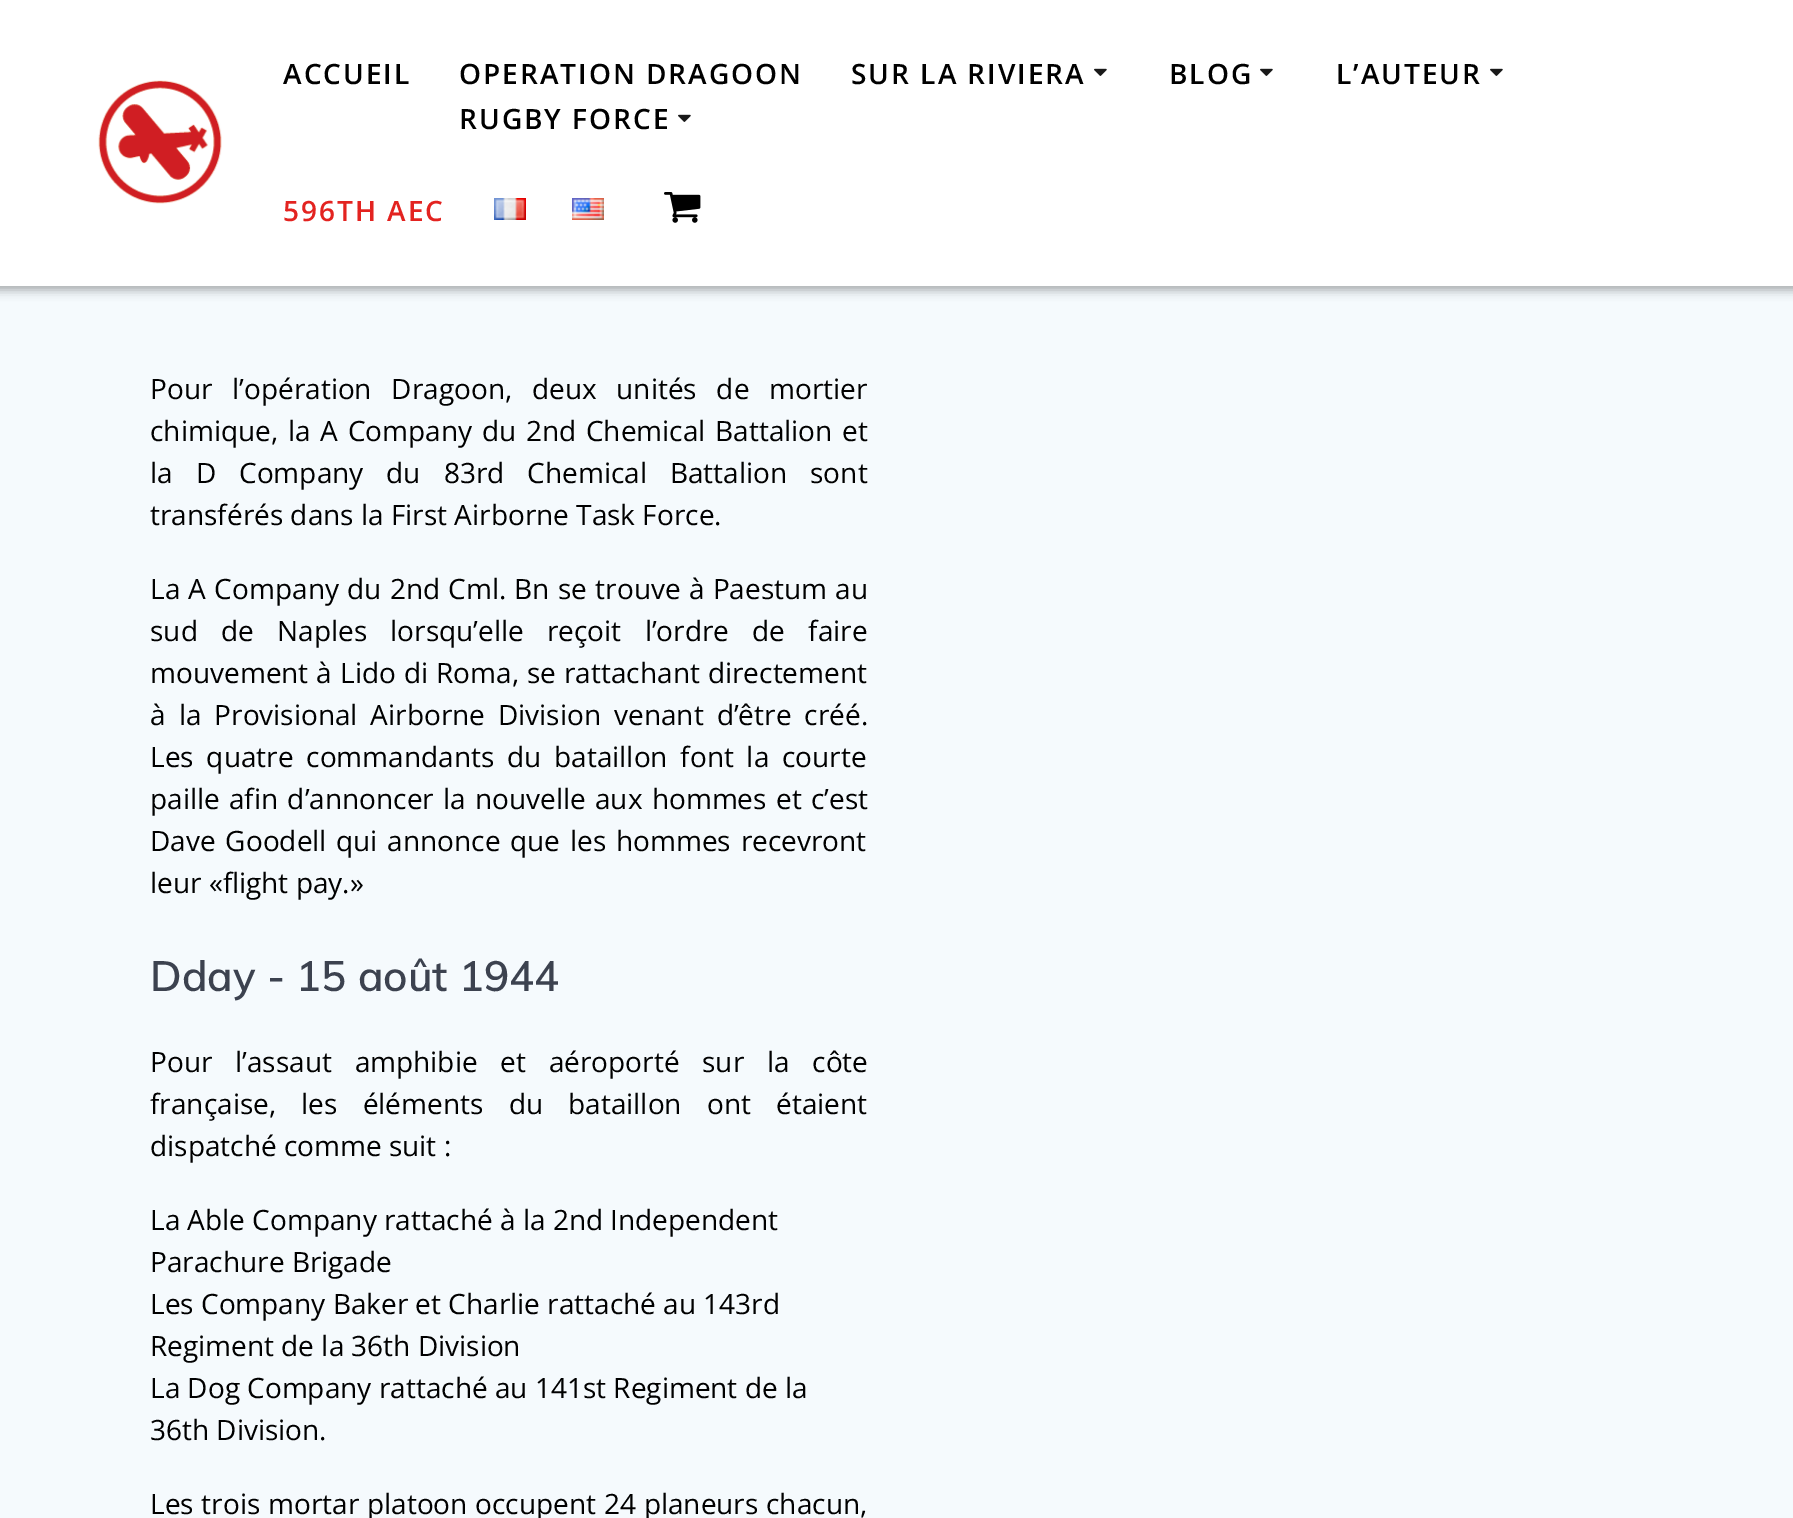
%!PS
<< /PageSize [1793 1518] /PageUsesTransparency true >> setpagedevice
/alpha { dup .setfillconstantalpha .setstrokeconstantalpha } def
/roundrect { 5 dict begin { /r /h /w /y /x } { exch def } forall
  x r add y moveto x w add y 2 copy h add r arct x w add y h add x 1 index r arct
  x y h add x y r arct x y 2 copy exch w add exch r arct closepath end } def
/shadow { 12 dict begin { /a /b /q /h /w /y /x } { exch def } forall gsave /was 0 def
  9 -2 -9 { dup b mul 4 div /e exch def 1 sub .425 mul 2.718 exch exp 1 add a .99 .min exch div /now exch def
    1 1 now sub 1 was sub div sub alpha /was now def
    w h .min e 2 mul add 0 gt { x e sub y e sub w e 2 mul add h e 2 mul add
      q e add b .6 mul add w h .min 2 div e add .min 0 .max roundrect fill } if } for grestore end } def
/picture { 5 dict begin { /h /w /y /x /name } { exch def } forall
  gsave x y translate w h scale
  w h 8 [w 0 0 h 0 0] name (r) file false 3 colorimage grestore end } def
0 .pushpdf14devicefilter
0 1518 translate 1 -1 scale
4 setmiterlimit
0.961 0.98 0.992 setrgbcolor
0 0 1793 1518 rectfill
0 setgray
-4 -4 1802 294 0 5 0.33 shadow
1 setgray
0 0 1793 286 rectfill
(img1.rgb) 98 80 124 124 picture
/OpenSans-SemiBold [28 0 0 -28 0 0] selectfont
0 setgray
283 84 moveto 2 0 (ACCUEIL) ashow
459 84 moveto 2 0 (OPERATION DRAGOON) ashow
459 129 moveto 2 0 (RUGBY FORCE) ashow
(img2.rgb) 678 114 13 8 picture
851 84 moveto 2 0 (SUR LA RIVIERA) ashow
(img2.rgb) 1094 68 13 8 picture
1169 84 moveto 2 0 (BLOG) ashow
(img2.rgb) 1260 68 13 8 picture
1336 84 moveto 2 0 (L’AUTEUR) ashow
(img2.rgb) 1490 68 13 8 picture
0.89 0.137 0.125 setrgbcolor
283 221 moveto 2 0 (596TH AEC) ashow
(img3.rgb) 494 198 32 22 picture
(img4.rgb) 572 198 32 22 picture
(img5.rgb) 664 192 37 31 picture
/OpenSans-Regular [28 0 0 -28 0 0] selectfont
0 setgray
150 399 moveto 12.5 0 32 (Pour l’opération Dragoon, deux unités de mortier) widthshow
150 441 moveto 2.5 0 32 (chimique, la A Company du 2nd Chemical Battalion et) widthshow
150 483 moveto 15.75 0 32 (la D Company du 83rd Chemical Battalion sont) widthshow
150 525 moveto (transférés dans la First Airborne Task Force.) show
150 599 moveto 1 0 32 (La A Company du 2nd Cml. Bn se trouve à Paestum au) widthshow
150 641 moveto 16 0 32 (sud de Naples lorsqu’elle reçoit l’ordre de faire) widthshow
150 683 moveto 0.75 0 32 (mouvement à Lido di Roma, se rattachant directement) widthshow
150 725 moveto 5.75 0 32 (à la Provisional Airborne Division venant d’être créé.) widthshow
150 767 moveto 5.5 0 32 (Les quatre commandants du bataillon font la courte) widthshow
150 809 moveto 2 0 32 (paille afin d’annoncer la nouvelle aux hommes et c’est) widthshow
150 851 moveto 2.5 0 32 (Dave Goodell qui annonce que les hommes recevront) widthshow
150 893 moveto (leur «flight pay.») show
/Muli-SemiBold [42 0 0 -42 0 0] selectfont
0.235 0.259 0.31 setrgbcolor
150 991 moveto (Dday - 15 août 1944) show
/OpenSans-Regular [28 0 0 -28 0 0] selectfont
0 setgray
150 1072 moveto 15.5 0 32 (Pour l’assaut amphibie et aéroporté sur la côte) widthshow
150 1114 moveto 18 0 32 (française, les éléments du bataillon ont étaient) widthshow
150 1156 moveto (dispatché comme suit :) show
150 1230 moveto (La Able Company rattaché à la 2nd Independent) show
150 1272 moveto (Parachure Brigade) show
150 1314 moveto (Les Company Baker et Charlie rattaché au 143rd) show
150 1356 moveto (Regiment de la 36th Division) show
150 1398 moveto (La Dog Company rattaché au 141st Regiment de la) show
150 1440 moveto (36th Division.) show
150 1514 moveto 0.5 0 32 (Les trois mortar platoon occupent 24 planeurs chacun,) widthshow
.poppdf14devicefilter showpage
